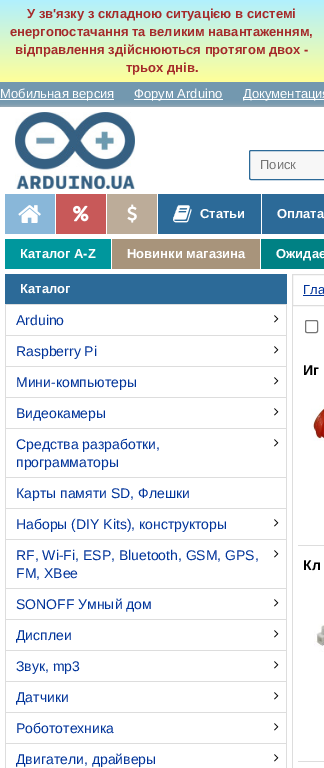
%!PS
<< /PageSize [324 768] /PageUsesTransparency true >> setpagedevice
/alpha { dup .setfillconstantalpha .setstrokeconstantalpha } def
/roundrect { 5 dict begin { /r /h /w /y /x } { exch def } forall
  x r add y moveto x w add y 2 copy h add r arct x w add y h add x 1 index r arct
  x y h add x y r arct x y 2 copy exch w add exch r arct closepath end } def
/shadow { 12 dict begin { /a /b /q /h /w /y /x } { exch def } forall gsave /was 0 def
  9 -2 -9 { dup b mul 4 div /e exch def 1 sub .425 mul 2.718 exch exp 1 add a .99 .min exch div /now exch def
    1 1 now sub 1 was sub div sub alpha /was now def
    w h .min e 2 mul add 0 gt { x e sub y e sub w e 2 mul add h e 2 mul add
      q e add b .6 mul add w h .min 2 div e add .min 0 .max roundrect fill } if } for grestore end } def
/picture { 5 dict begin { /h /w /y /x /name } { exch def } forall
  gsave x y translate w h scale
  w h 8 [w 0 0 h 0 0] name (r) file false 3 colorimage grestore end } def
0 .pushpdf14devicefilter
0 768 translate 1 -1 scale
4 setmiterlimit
1 setgray
0 0 324 768 rectfill
gsave newpath 0 0 moveto 324 0 lineto 324 82 lineto 0 82 lineto closepath clip newpath
<< /ShadingType 2 /ColorSpace /DeviceRGB /Coords [162 0 162 82] /Extend [true true] /Function << /FunctionType 2 /Domain [0 1] /C0 [0.694 0.941 0.996] /C1 [1 1 0.6] /N 1 >> >> shfill grestore
/LiberationSans-Bold [13 0 0 -13 0 0] selectfont
0.647 0.165 0.165 setrgbcolor
27 18 moveto (У зв'язку з складною ситуацією в системі) show
10 36 moveto (енергопостачання та великим навантаженням,) show
15 54 moveto (відправлення здійснюються протягом двох -) show
126 72 moveto (трьох днів.) show
0.451 0.596 0.686 setrgbcolor
0 82 324 25 rectfill
0.733 setgray
0 107 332 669 0 2.5 1 shadow
1 setgray
0 99 114 1 rectfill
/LiberationSans-Regular [13 0 0 -13 0 0] selectfont
0 98 moveto (Мобильная версия) show
134 99 89 1 rectfill
134 98 moveto (Форум Arduino) show
243 99 81 1 rectfill
243 98 moveto (Документация) show
0 107 324 661 rectfill
(img1.rgb) 15 112 120 77 picture
0.969 setgray
newpath 251 150.5 moveto 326.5 150.5 lineto 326.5 179.5 lineto 251 179.5 lineto 250 179.5 249.5 179 249.5 178 curveto 249.5 152 lineto 249.5 151 250 150.5 251 150.5 curveto closepath gsave fill grestore
0.173 0.416 0.596 setrgbcolor
stroke
0.459 setgray
260 169 moveto (Поиск) show
0.173 0.416 0.596 setrgbcolor
158 194 166 40 rectfill
0.537 0.718 0.851 setrgbcolor
5 194 50 40 rectfill
(img2.rgb) 18 205 23 18 picture
0.784 0.349 0.349 setrgbcolor
56 194 50 40 rectfill
(img3.rgb) 73 205 16 17 picture
0.737 0.675 0.6 setrgbcolor
107 194 50 40 rectfill
(img4.rgb) 127 204 10 19 picture
(img5.rgb) 173 205 19 18 picture
/LiberationSans-Bold [13 0 0 -13 0 0] selectfont
1 setgray
200 218 moveto (Статьи) show
261 194 1 40 rectfill
277 218 moveto (Оплата) show
0 0.592 0.616 setrgbcolor
5 239 106 30 rectfill
1 setgray
20 258 moveto (Каталог A-Z) show
0.659 0.58 0.482 setrgbcolor
112 239 148 30 rectfill
1 setgray
127 258 moveto (Новинки магазина) show
0 0.506 0.518 setrgbcolor
261 239 63 30 rectfill
1 setgray
276 258 moveto (Ожидае) show
0.173 0.416 0.596 setrgbcolor
5 274 282 30 rectfill
1 setgray
20 293 moveto (Каталог) show
0.867 setgray
5 304 282 1 rectfill
286 304 1 464 rectfill
5 304 1 464 rectfill
6 335 280 1 rectfill
/LiberationSans-Regular [14 0 0 -14 0 0] selectfont
0 0.2 0.6 setrgbcolor
16 325 moveto (Arduino) show
(img6.rgb) 274 315 5 8 picture
0.867 setgray
6 366 280 1 rectfill
0 0.2 0.6 setrgbcolor
16 356 moveto (Raspberry Pi) show
(img6.rgb) 274 346 5 8 picture
0.867 setgray
6 397 280 1 rectfill
0 0.2 0.6 setrgbcolor
16 387 moveto (Мини-компьютеры) show
(img6.rgb) 274 377 5 8 picture
0.867 setgray
6 428 280 1 rectfill
0 0.2 0.6 setrgbcolor
16 418 moveto (Видеокамеры) show
(img6.rgb) 274 408 5 8 picture
0.867 setgray
6 477 280 1 rectfill
0 0.2 0.6 setrgbcolor
16 449 moveto (Средства разработки,) show
16 467 moveto (программаторы) show
(img6.rgb) 274 439 5 8 picture
0.867 setgray
6 508 280 1 rectfill
0 0.2 0.6 setrgbcolor
16 498 moveto (Карты памяти SD, Флешки) show
0.867 setgray
6 539 280 1 rectfill
0 0.2 0.6 setrgbcolor
16 529 moveto (Наборы \(DIY Kits\), конструкторы) show
(img6.rgb) 274 519 5 8 picture
0.867 setgray
6 588 280 1 rectfill
0 0.2 0.6 setrgbcolor
16 560 moveto (RF, Wi-Fi, ESP, Bluetooth, GSM, GPS,) show
16 578 moveto (FM, XBee) show
(img6.rgb) 274 550 5 8 picture
0.867 setgray
6 619 280 1 rectfill
0 0.2 0.6 setrgbcolor
16 609 moveto (SONOFF Умный дом) show
(img6.rgb) 274 599 5 8 picture
0.867 setgray
6 650 280 1 rectfill
0 0.2 0.6 setrgbcolor
16 640 moveto (Дисплеи) show
(img6.rgb) 274 630 5 8 picture
0.867 setgray
6 681 280 1 rectfill
0 0.2 0.6 setrgbcolor
16 671 moveto (Звук, mp3) show
(img6.rgb) 274 661 5 8 picture
0.867 setgray
6 712 280 1 rectfill
0 0.2 0.6 setrgbcolor
16 702 moveto (Датчики) show
(img6.rgb) 274 692 5 8 picture
0.867 setgray
6 743 280 1 rectfill
0 0.2 0.6 setrgbcolor
16 733 moveto (Робототехника) show
(img6.rgb) 274 723 5 8 picture
16 764 moveto (Двигатели, драйверы) show
(img6.rgb) 274 754 5 8 picture
0.867 setgray
292.5 274.5 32 31 rectstroke
/LiberationSans-Regular [13 0 0 -13 0 0] selectfont
0 0.2 0.6 setrgbcolor
303 294 moveto (Гла) show
303 295 21 1 rectfill
0.867 setgray
292 306 1 462 rectfill
0.463 setgray
305.5 320.5 12 12 1.5 roundrect stroke
0.867 setgray
298 545 26 1 rectfill
/LiberationSans-Bold [14 0 0 -14 0 0] selectfont
0 setgray
303 375 moveto (Иг) show
(img7.rgb) 311 405 13 36 picture
0.867 setgray
298 761 26 1 rectfill
0 setgray
303 570 moveto (Кл) show
(img8.rgb) 314 624 10 28 picture
.poppdf14devicefilter showpage
